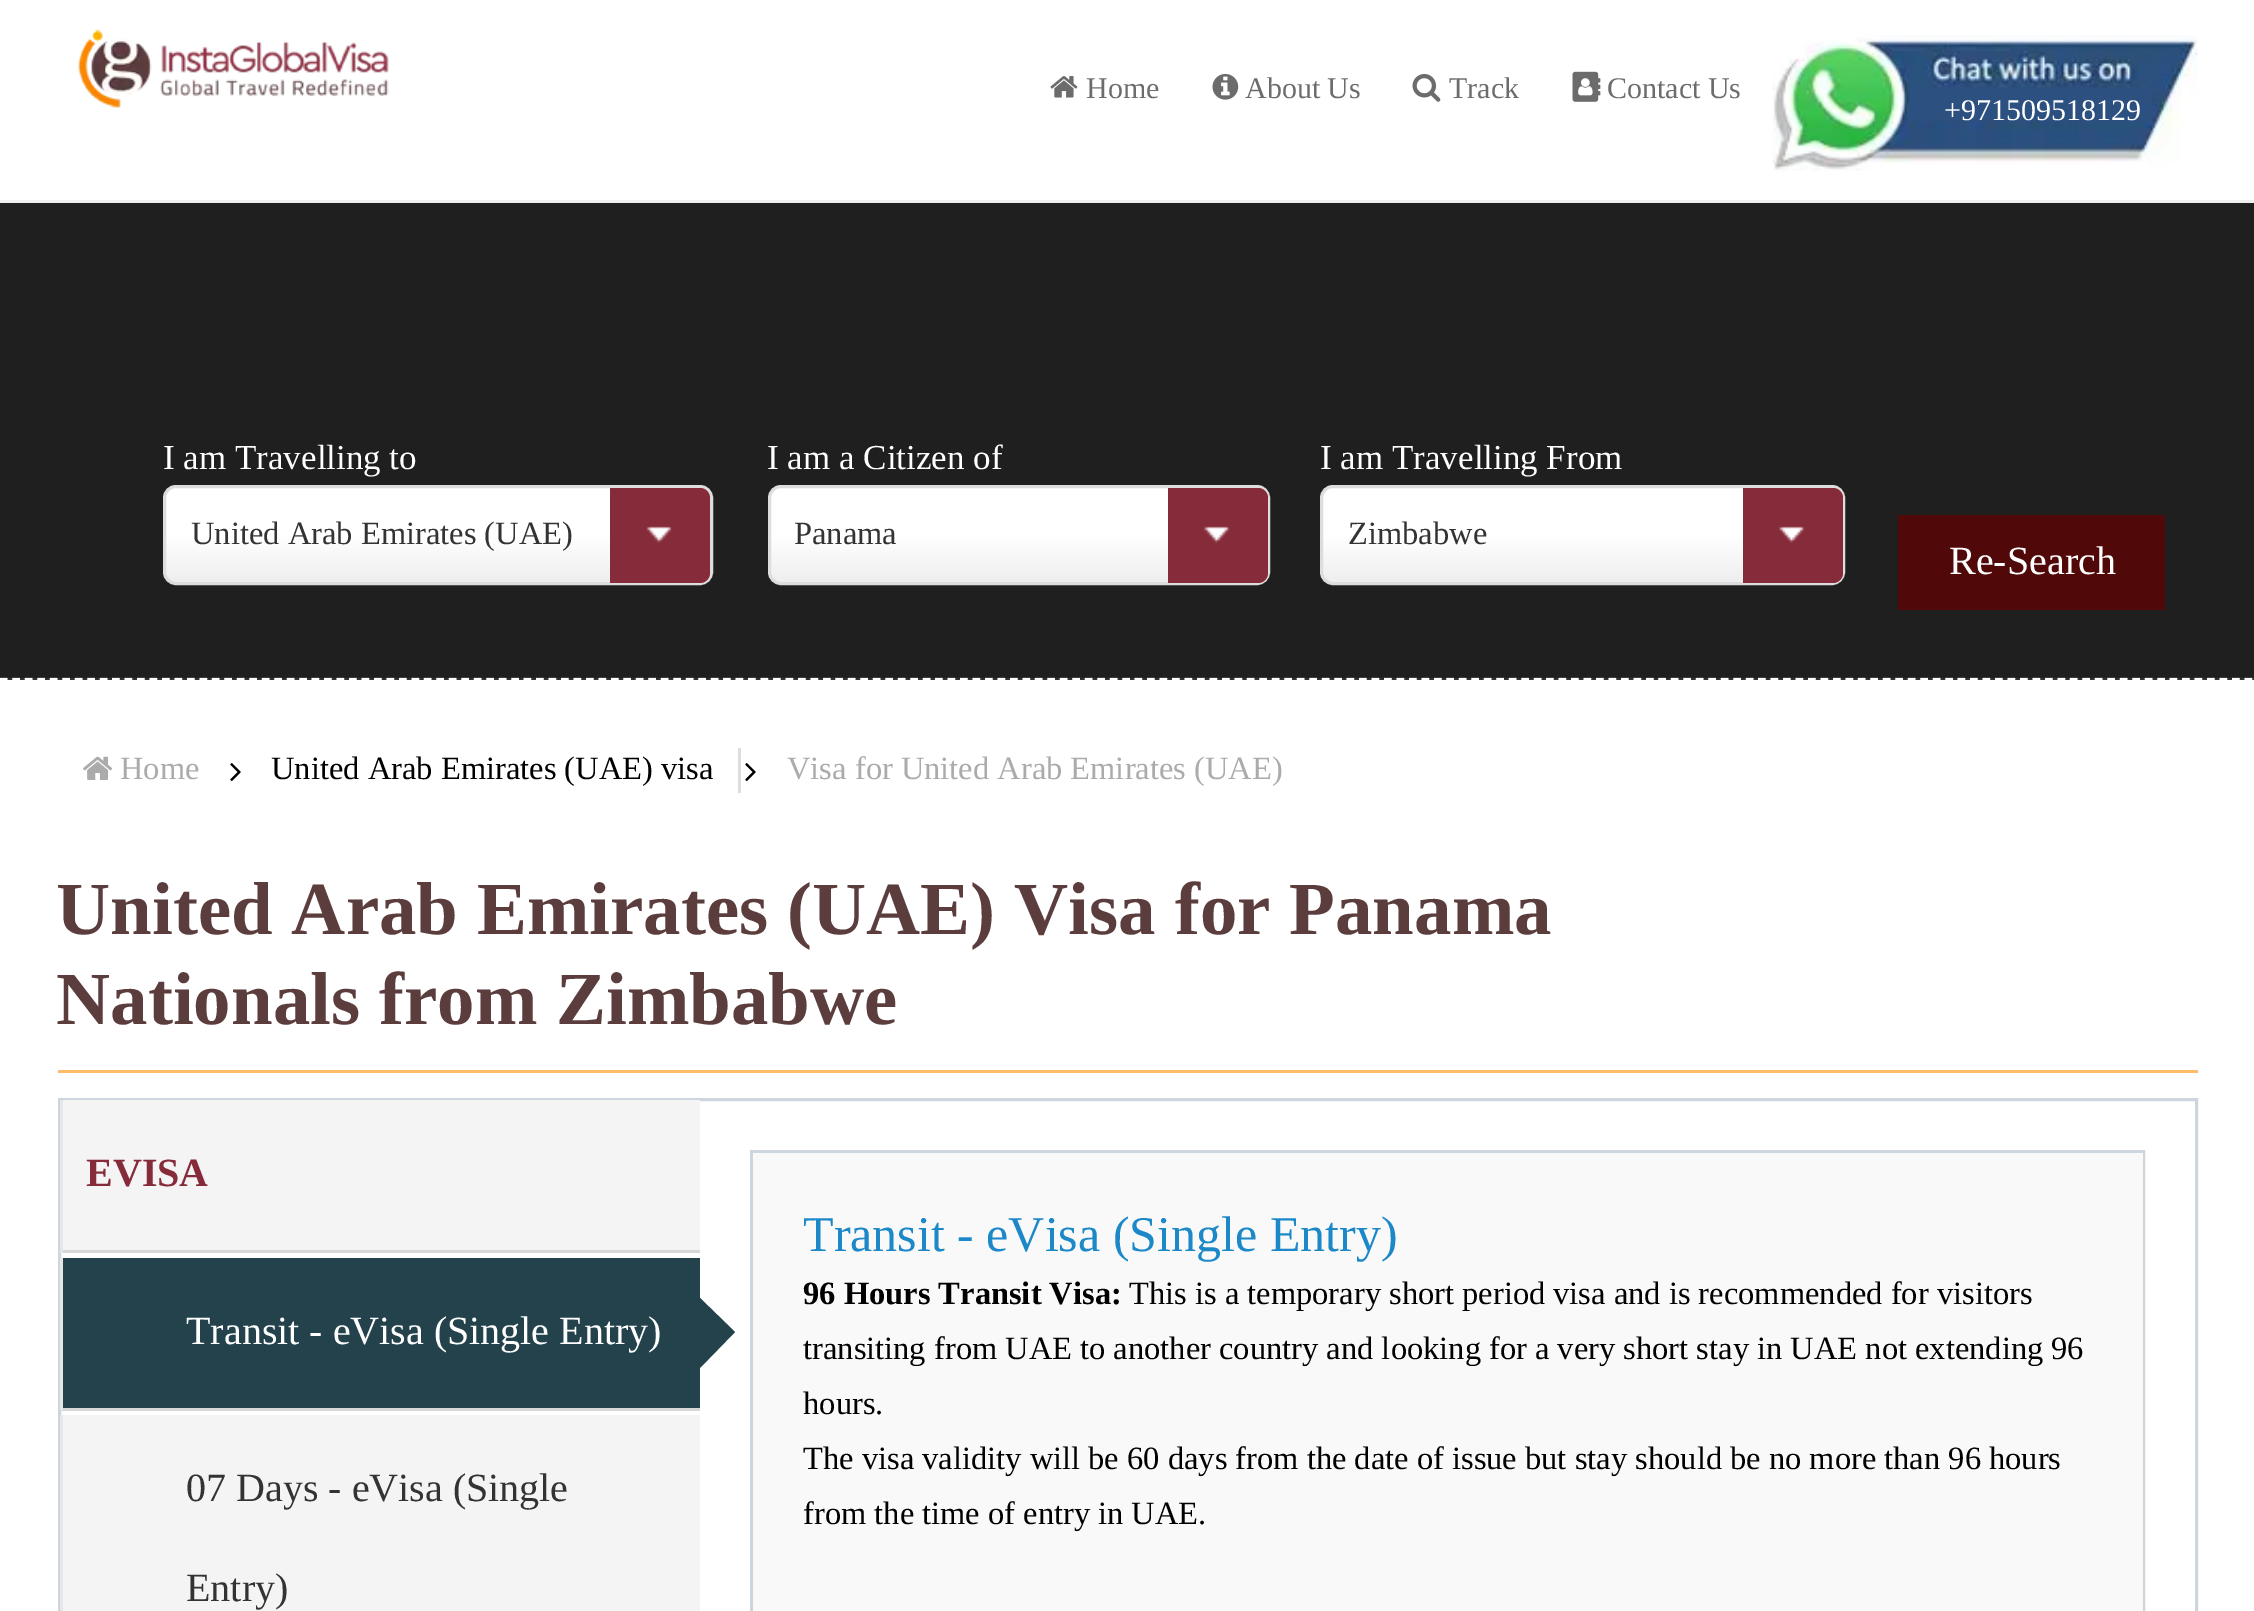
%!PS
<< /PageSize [2254 1611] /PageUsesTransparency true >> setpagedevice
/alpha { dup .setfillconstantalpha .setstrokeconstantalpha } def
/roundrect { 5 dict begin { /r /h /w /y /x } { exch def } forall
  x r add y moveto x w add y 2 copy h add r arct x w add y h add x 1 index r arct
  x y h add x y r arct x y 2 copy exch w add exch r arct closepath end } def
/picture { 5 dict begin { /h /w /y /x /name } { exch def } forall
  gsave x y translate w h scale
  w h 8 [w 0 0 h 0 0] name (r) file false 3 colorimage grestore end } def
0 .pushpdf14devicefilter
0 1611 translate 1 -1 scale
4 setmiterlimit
1 setgray
0 0 2254 1611 rectfill
0.933 setgray
0 200 2254 3 rectfill
(img1.rgb) 78 29 311 79 picture
(img2.rgb) 1050 76 28 22 picture
/LiberationSerif-Regular [30 0 0 -30 0 0] selectfont
0.424 setgray
1086 98 moveto (Home) show
(img3.rgb) 1212 73 27 27 picture
1245 98 moveto (About Us) show
(img4.rgb) 1412 73 29 29 picture
1449 98 moveto (Track) show
(img5.rgb) 1572 71 29 31 picture
1607 98 moveto (Contact Us) show
(img6.rgb) 1772 35 426 136 picture
1 setgray
1944 120 moveto (+971509518129) show
0.2 setgray
0 203 2254 477 rectfill
1 setgray
2.5 setlinewidth
[7.5 4.97] 0 setdash
newpath 0 679 moveto 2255 679 lineto stroke
0.4 alpha
0 setgray
0 203 2254 475 rectfill
/LiberationSerif-Regular [35 0 0 -35 0 0] selectfont
1 alpha
1 setgray
163 469 moveto (I am Travelling to) show
gsave 165 488 545 95 10 roundrect clip newpath
<< /ShadingType 2 /ColorSpace /DeviceRGB /Coords [438 583 438 488] /Extend [true true] /Function << /FunctionType 3 /Domain [0 1] /Functions [<< /FunctionType 2 /Domain [0 1] /C0 [0.933 0.933 0.933] /C1 [1 1 1] /N 1 >> << /FunctionType 2 /Domain [0 1] /C0 [1 1 1] /C1 [1 1 1] /N 1 >>] /Bounds [0.5] /Encode [0 1 0 1] >> >> shfill grestore
0.867 setgray
3 setlinewidth
[] 0 setdash
164.5 486.5 547 97 11.5 roundrect stroke
/LiberationSerif-Regular [32.5 0 0 -32.5 0 0] selectfont
0.2 setgray
191 544 moveto (United Arab Emirates \(UAE\)) show
0.525 0.169 0.227 setrgbcolor
newpath 610 488 moveto 700 488 lineto 705.5 488 710 492.5 710 498 curveto 710 573 lineto 710 578.5 705.5 583 700 583 curveto 610 583 lineto closepath fill
(img7.rgb) 646 526 27 17 picture
/LiberationSerif-Regular [35 0 0 -35 0 0] selectfont
1 setgray
767 469 moveto (I am a Citizen of) show
gsave 770 488 498 95 10 roundrect clip newpath
<< /ShadingType 2 /ColorSpace /DeviceRGB /Coords [1019 583 1019 488] /Extend [true true] /Function << /FunctionType 3 /Domain [0 1] /Functions [<< /FunctionType 2 /Domain [0 1] /C0 [0.933 0.933 0.933] /C1 [1 1 1] /N 1 >> << /FunctionType 2 /Domain [0 1] /C0 [1 1 1] /C1 [1 1 1] /N 1 >>] /Bounds [0.5] /Encode [0 1 0 1] >> >> shfill grestore
0.867 setgray
769.5 486.5 499 97 11.5 roundrect stroke
/LiberationSerif-Regular [32.5 0 0 -32.5 0 0] selectfont
0.2 setgray
794 544 moveto (Panama) show
0.525 0.169 0.227 setrgbcolor
newpath 1168 488 moveto 1258 488 lineto 1263.5 488 1268 492.5 1268 498 curveto 1268 573 lineto 1268 578.5 1263.5 583 1258 583 curveto 1168 583 lineto closepath fill
(img8.rgb) 1204 526 26 17 picture
/LiberationSerif-Regular [35 0 0 -35 0 0] selectfont
1 setgray
1320 469 moveto (I am Travelling From) show
gsave 1323 488 520 95 10 roundrect clip newpath
<< /ShadingType 2 /ColorSpace /DeviceRGB /Coords [1583 583 1583 488] /Extend [true true] /Function << /FunctionType 3 /Domain [0 1] /Functions [<< /FunctionType 2 /Domain [0 1] /C0 [0.933 0.933 0.933] /C1 [1 1 1] /N 1 >> << /FunctionType 2 /Domain [0 1] /C0 [1 1 1] /C1 [1 1 1] /N 1 >>] /Bounds [0.5] /Encode [0 1 0 1] >> >> shfill grestore
0.867 setgray
1321.5 486.5 522 97 11.5 roundrect stroke
/LiberationSerif-Regular [32.5 0 0 -32.5 0 0] selectfont
0.2 setgray
1348 544 moveto (Zimbabwe) show
0.525 0.169 0.227 setrgbcolor
newpath 1743 488 moveto 1833 488 lineto 1838.5 488 1843 492.5 1843 498 curveto 1843 573 lineto 1843 578.5 1838.5 583 1833 583 curveto 1743 583 lineto closepath fill
(img8.rgb) 1779 526 26 17 picture
0.318 0.031 0.031 setrgbcolor
1898 515 267 95 rectfill
/LiberationSerif-Regular [40 0 0 -40 0 0] selectfont
1 setgray
1949 574 moveto (Re-Search) show
(img9.rgb) 83 756 30 24 picture
/LiberationSerif-Regular [32.5 0 0 -32.5 0 0] selectfont
0.671 setgray
120 779 moveto (Home) show
(img10.rgb) 230 763 11 19 picture
0.867 setgray
738 748 3 45 rectfill
0 setgray
271 779 moveto (United Arab Emirates \(UAE\) visa) show
(img10.rgb) 745 763 11 19 picture
0.671 setgray
787 779 moveto (Visa for United Arab Emirates \(UAE\)) show
1 0.733 0.424 setrgbcolor
58 1070 2140 3 rectfill
/LiberationSerif-Bold [75 0 0 -75 0 0] selectfont
0.361 0.239 0.239 setrgbcolor
56 934 moveto (United Arab Emirates \(UAE\) Visa for Panama) show
56 1024 moveto (Nationals from Zimbabwe) show
0.804 0.839 0.871 setrgbcolor
59.5 1099.5 2137 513 rectstroke
0.957 setgray
63 1100 637 150 rectfill
0.843 setgray
60 1250 640 3 rectfill
0.902 setgray
60 1100 3 153 rectfill
/LiberationSerif-Bold [40 0 0 -40 0 0] selectfont
0.525 0.169 0.227 setrgbcolor
86 1186 moveto (EVISA) show
0.137 0.259 0.294 setrgbcolor
63 1258 637 150 rectfill
0.843 setgray
60 1408 640 3 rectfill
0.902 setgray
60 1258 3 152 rectfill
/LiberationSerif-Regular [40 0 0 -40 0 0] selectfont
1 setgray
186 1344 moveto (Transit - eVisa \(Single Entry\)) show
0.137 0.259 0.294 setrgbcolor
newpath 700 1368 moveto 700 1298 lineto 735 1332 lineto closepath fill
0.957 setgray
63 1415 637 196 rectfill
0.902 setgray
60 1415 3 196 rectfill
0.2 setgray
186 1501 moveto (07 Days - eVisa \(Single) show
186 1601 moveto (Entry\)) show
0.804 0.839 0.871 setrgbcolor
751.5 1151.5 1392 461 rectstroke
0.976 setgray
753 1153 1390 458 rectfill
/LiberationSerif-Regular [50 0 0 -50 0 0] selectfont
0.11 0.533 0.784 setrgbcolor
803 1251 moveto (Transit - eVisa \(Single Entry\)) show
/LiberationSerif-Bold [32.5 0 0 -32.5 0 0] selectfont
0 setgray
803 1304 moveto (96 Hours Transit Visa:) show
/LiberationSerif-Regular [32.5 0 0 -32.5 0 0] selectfont
1129 1304 moveto (This is a temporary short period visa and is recommended for visitors) show
803 1359 moveto (transiting from UAE to another country and looking for a very short stay in UAE not extending 96) show
803 1414 moveto (hours.) show
803 1469 moveto (The visa validity will be 60 days from the date of issue but stay should be no more than 96 hours) show
803 1524 moveto (from the time of entry in UAE.) show
.poppdf14devicefilter showpage
